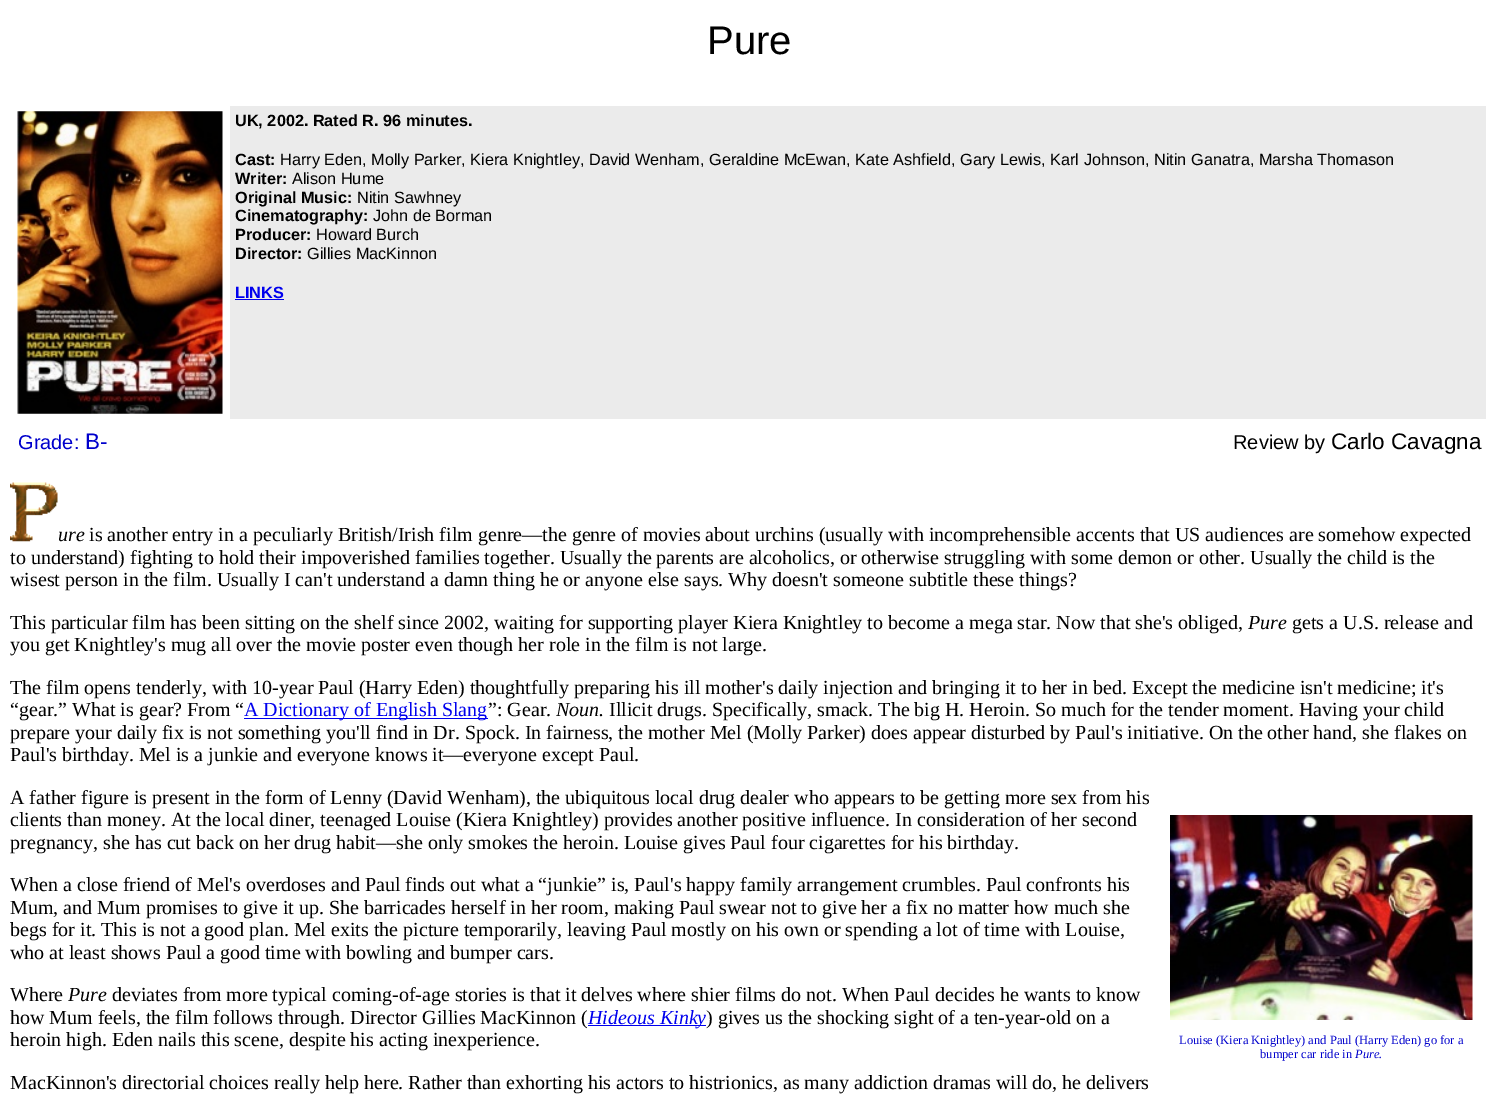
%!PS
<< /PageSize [1498 1095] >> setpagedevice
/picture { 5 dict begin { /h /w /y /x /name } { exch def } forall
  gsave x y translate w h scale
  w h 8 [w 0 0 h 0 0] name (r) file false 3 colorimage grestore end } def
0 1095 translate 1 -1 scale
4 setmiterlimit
1 setgray
0 0 1498 1095 rectfill
/LiberationSans-Regular [40 0 0 -40 0 0] selectfont
0 setgray
707 54 moveto (Pure) show
(img1.rgb) 17 111 206 303 picture
0.922 setgray
230 106 1256 313 rectfill
/LiberationSans-Bold [16.25 0 0 -16.25 0 0] selectfont
0 setgray
235 126 moveto (UK, 2002. Rated R. 96 minutes.) show
235 165 moveto (Cast:) show
/LiberationSans-Regular [16.25 0 0 -16.25 0 0] selectfont
280 165 moveto (Harry Eden, Molly Parker, Kiera Knightley, David Wenham, Geraldine McEwan, Kate Ashfield, Gary Lewis, Karl Johnson, Nitin Ganatra, Marsha Thomason) show
/LiberationSans-Bold [16.25 0 0 -16.25 0 0] selectfont
235 184 moveto (Writer:) show
/LiberationSans-Regular [16.25 0 0 -16.25 0 0] selectfont
292 184 moveto (Alison Hume) show
/LiberationSans-Bold [16.25 0 0 -16.25 0 0] selectfont
235 203 moveto (Original Music:) show
/LiberationSans-Regular [16.25 0 0 -16.25 0 0] selectfont
357 203 moveto (Nitin Sawhney) show
/LiberationSans-Bold [16.25 0 0 -16.25 0 0] selectfont
235 221 moveto (Cinematography:) show
/LiberationSans-Regular [16.25 0 0 -16.25 0 0] selectfont
373 221 moveto (John de Borman) show
/LiberationSans-Bold [16.25 0 0 -16.25 0 0] selectfont
235 240 moveto (Producer:) show
/LiberationSans-Regular [16.25 0 0 -16.25 0 0] selectfont
316 240 moveto (Howard Burch) show
/LiberationSans-Bold [16.25 0 0 -16.25 0 0] selectfont
235 259 moveto (Director:) show
/LiberationSans-Regular [16.25 0 0 -16.25 0 0] selectfont
307 259 moveto (Gillies MacKinnon) show
/LiberationSans-Bold [16.25 0 0 -16.25 0 0] selectfont
0 0 0.933 setrgbcolor
235 298 moveto (LINKS) show
235 299 49 1 rectfill
/LiberationSans-Regular [20 0 0 -20 0 0] selectfont
0 0 0.8 setrgbcolor
18 449 moveto (Grade:) show
/LiberationSans-Regular [22.5 0 0 -22.5 0 0] selectfont
85 449 moveto (B-) show
/LiberationSans-Regular [20 0 0 -20 0 0] selectfont
0 setgray
1233 449 moveto (Review by) show
/LiberationSans-Regular [22.5 0 0 -22.5 0 0] selectfont
1331 449 moveto (Carlo Cavagna) show
(img2.rgb) 10 482 48 60 picture
/LiberationSerif-Italic [20 0 0 -20 0 0] selectfont
58 541 moveto (ure) show
/LiberationSerif-Regular [20 0 0 -20 0 0] selectfont
89 541 moveto (is another entry in a peculiarly British/Irish film genre—the genre of movies about urchins \(usually with incomprehensible accents that US audiences are somehow expected) show
10 564 moveto (to understand\) fighting to hold their impoverished families together. Usually the parents are alcoholics, or otherwise struggling with some demon or other. Usually the child is the) show
10 586 moveto (wisest person in the film. Usually I can't understand a damn thing he or anyone else says. Why doesn't someone subtitle these things?) show
10 629 moveto (This particular film has been sitting on the shelf since 2002, waiting for supporting player Kiera Knightley to become a mega star. Now that she's obliged,) show
/LiberationSerif-Italic [20 0 0 -20 0 0] selectfont
1248 629 moveto (Pure) show
/LiberationSerif-Regular [20 0 0 -20 0 0] selectfont
1292 629 moveto (gets a U.S. release and) show
10 651 moveto (you get Knightley's mug all over the movie poster even though her role in the film is not large.) show
10 694 moveto (The film opens tenderly, with 10-year Paul \(Harry Eden\) thoughtfully preparing his ill mother's daily injection and bringing it to her in bed. Except the medicine isn't medicine; it's) show
10 716 moveto (“gear.” What is gear? From “) show
0 0 0.933 setrgbcolor
244 718 244 1 rectfill
244 716 moveto (A Dictionary of English Slang) show
0 setgray
488 716 moveto (”: Gear.) show
/LiberationSerif-Italic [20 0 0 -20 0 0] selectfont
556 716 moveto (Noun.) show
/LiberationSerif-Regular [20 0 0 -20 0 0] selectfont
609 716 moveto (Illicit drugs. Specifically, smack. The big H. Heroin. So much for the tender moment. Having your child) show
10 739 moveto (prepare your daily fix is not something you'll find in Dr. Spock. In fairness, the mother Mel \(Molly Parker\) does appear disturbed by Paul's initiative. On the other hand, she flakes on) show
10 761 moveto (Paul's birthday. Mel is a junkie and everyone knows it—everyone except Paul.) show
10 804 moveto (A father figure is present in the form of Lenny \(David Wenham\), the ubiquitous local drug dealer who appears to be getting more sex from his) show
10 826 moveto (clients than money. At the local diner, teenaged Louise \(Kiera Knightley\) provides another positive influence. In consideration of her second) show
10 849 moveto (pregnancy, she has cut back on her drug habit—she only smokes the heroin. Louise gives Paul four cigarettes for his birthday.) show
10 891 moveto (When a close friend of Mel's overdoses and Paul finds out what a “junkie” is, Paul's happy family arrangement crumbles. Paul confronts his) show
10 914 moveto (Mum, and Mum promises to give it up. She barricades herself in her room, making Paul swear not to give her a fix no matter how much she) show
10 936 moveto (begs for it. This is not a good plan. Mel exits the picture temporarily, leaving Paul mostly on his own or spending a lot of time with Louise,) show
10 959 moveto (who at least shows Paul a good time with bowling and bumper cars.) show
10 1001 moveto (Where) show
/LiberationSerif-Italic [20 0 0 -20 0 0] selectfont
68 1001 moveto (Pure) show
/LiberationSerif-Regular [20 0 0 -20 0 0] selectfont
112 1001 moveto (deviates from more typical coming-of-age stories is that it delves where shier films do not. When Paul decides he wants to know) show
10 1024 moveto (how Mum feels, the film follows through. Director Gillies MacKinnon \() show
0 0 0.933 setrgbcolor
588 1025 118 1 rectfill
/LiberationSerif-Italic [20 0 0 -20 0 0] selectfont
588 1024 moveto (Hideous Kinky) show
/LiberationSerif-Regular [20 0 0 -20 0 0] selectfont
0 setgray
706 1024 moveto (\) gives us the shocking sight of a ten-year-old on a) show
10 1046 moveto (heroin high. Eden nails this scene, despite his acting inexperience.) show
(img3.rgb) 1170 815 303 205 picture
/LiberationSerif-Regular [12.5 0 0 -12.5 0 0] selectfont
0 0 0.8 setrgbcolor
1179 1044 moveto (Louise \(Kiera Knightley\) and Paul \(Harry Eden\) go for a) show
1260 1058 moveto (bumper car ride in) show
/LiberationSerif-Italic [12.5 0 0 -12.5 0 0] selectfont
1355 1058 moveto (Pure.) show
/LiberationSerif-Regular [20 0 0 -20 0 0] selectfont
0 setgray
10 1089 moveto (MacKinnon's directorial choices really help here. Rather than exhorting his actors to histrionics, as many addiction dramas will do, he delivers) show
showpage
